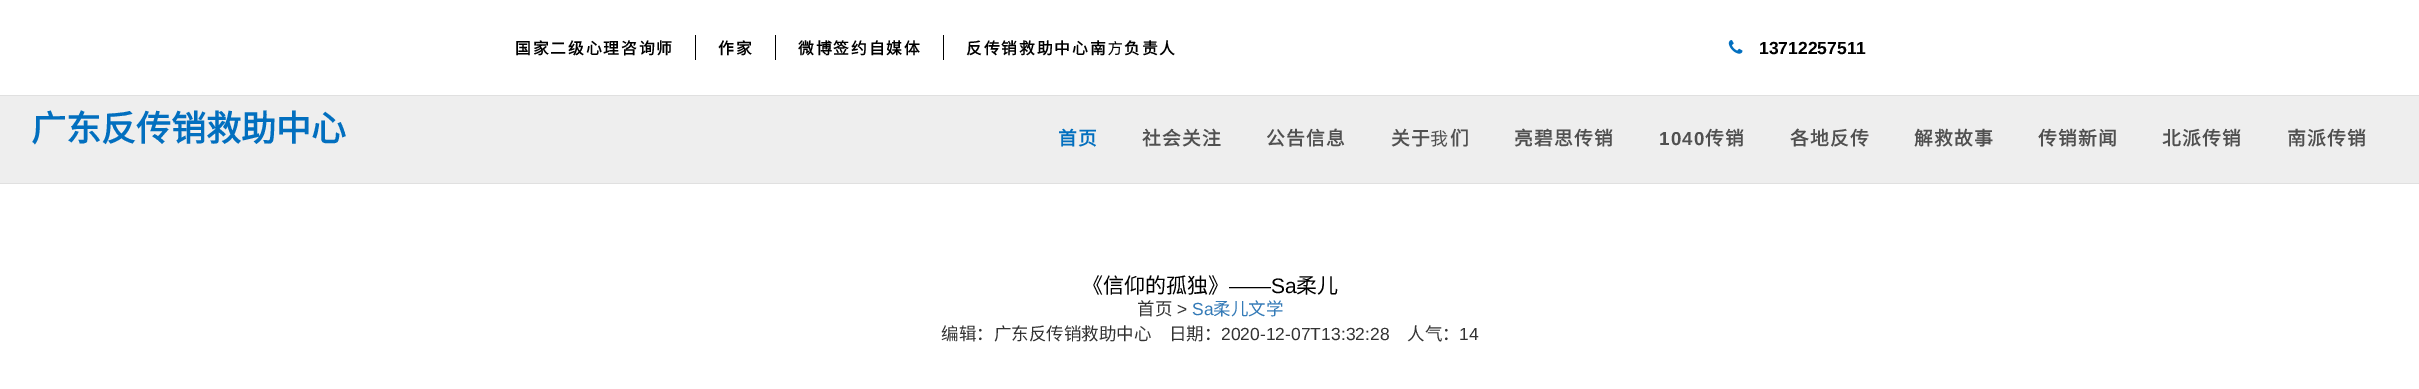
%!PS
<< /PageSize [2419 389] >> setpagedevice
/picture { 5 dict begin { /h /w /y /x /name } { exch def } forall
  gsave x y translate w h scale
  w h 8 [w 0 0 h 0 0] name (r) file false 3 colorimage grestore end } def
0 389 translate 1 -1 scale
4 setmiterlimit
1 setgray
0 0 2419 389 rectfill
0 setgray
695 35 1 25 rectfill
/NotoSansCJKSC-Bold [15.75 0 0 -15.75 0 0] selectfont
515 54 moveto 1.9 0 (国家二级心理咨询师) ashow
775 35 1 25 rectfill
718 54 moveto 1.9 0 (作家) ashow
943 35 1 25 rectfill
798 54 moveto 1.9 0 (微博签约自媒体) ashow
966 54 moveto 1.9 0 (反传销救助中心南) ashow
(img1.rgb) 1108 41 14 15 picture
1124 54 moveto 1.9 0 (负责人) ashow
(img2.rgb) 1728 40 15 14 picture
/LiberationSans-Bold [17.5 0 0 -17.5 0 0] selectfont
1759 54 moveto (13712257511) show
0.933 setgray
0 96 2419 87 rectfill
0.878 setgray
0 95 2419 1 rectfill
0 183 2419 1 rectfill
/NotoSansCJKSC-Bold [35 0 0 -35 0 0] selectfont
0.008 0.435 0.749 setrgbcolor
31 141 moveto (广东反传销救助中心) show
/NotoSansCJKSC-Bold [18.75 0 0 -18.75 0 0] selectfont
1058 145 moveto 1.25 0 (首页) ashow
0.314 setgray
1142 145 moveto 1.25 0 (社会关注) ashow
1266 145 moveto 1.25 0 (公告信息) ashow
1391 145 moveto 1.25 0 (关于) ashow
(img3.rgb) 1431 130 17 17 picture
1450 145 moveto 1.25 0 (们) ashow
1514 145 moveto 1.25 0 (亮碧思传销) ashow
/LiberationSans-Bold [18.75 0 0 -18.75 0 0] selectfont
1659 145 moveto 1.25 0 (1040) ashow
/NotoSansCJKSC-Bold [18.75 0 0 -18.75 0 0] selectfont
1705 145 moveto 1.25 0 (传销) ashow
1790 145 moveto 1.25 0 (各地反传) ashow
1914 145 moveto 1.25 0 (解救故事) ashow
2038 145 moveto 1.25 0 (传销新闻) ashow
2162 145 moveto 1.25 0 (北派传销) ashow
2287 145 moveto 1.25 0 (南派传销) ashow
/NotoSansCJKSC-Regular [21 0 0 -21 0 0] selectfont
0 setgray
1082 293 moveto (《信仰的孤独》) show
/LiberationSans-Regular [21 0 0 -21 0 0] selectfont
1229 293 moveto (——Sa) show
/NotoSansCJKSC-Regular [21 0 0 -21 0 0] selectfont
1296 293 moveto (柔儿) show
/NotoSansCJKSC-Regular [17.5 0 0 -17.5 0 0] selectfont
0.2 setgray
1137 315 moveto (首页) show
/LiberationSans-Regular [17.5 0 0 -17.5 0 0] selectfont
1177 315 moveto (>) show
0.2 0.478 0.718 setrgbcolor
1192 315 moveto (Sa) show
/NotoSansCJKSC-Regular [17.5 0 0 -17.5 0 0] selectfont
1213 315 moveto (柔儿文学) show
0.2 setgray
941 340 moveto (编辑：广东反传销救助中心　日期：) show
/LiberationSans-Regular [17.5 0 0 -17.5 0 0] selectfont
1221 340 moveto (2020-12-07T13:32:28) show
/NotoSansCJKSC-Regular [17.5 0 0 -17.5 0 0] selectfont
1407 340 moveto (人气：) show
/LiberationSans-Regular [17.5 0 0 -17.5 0 0] selectfont
1459 340 moveto (14) show
showpage
